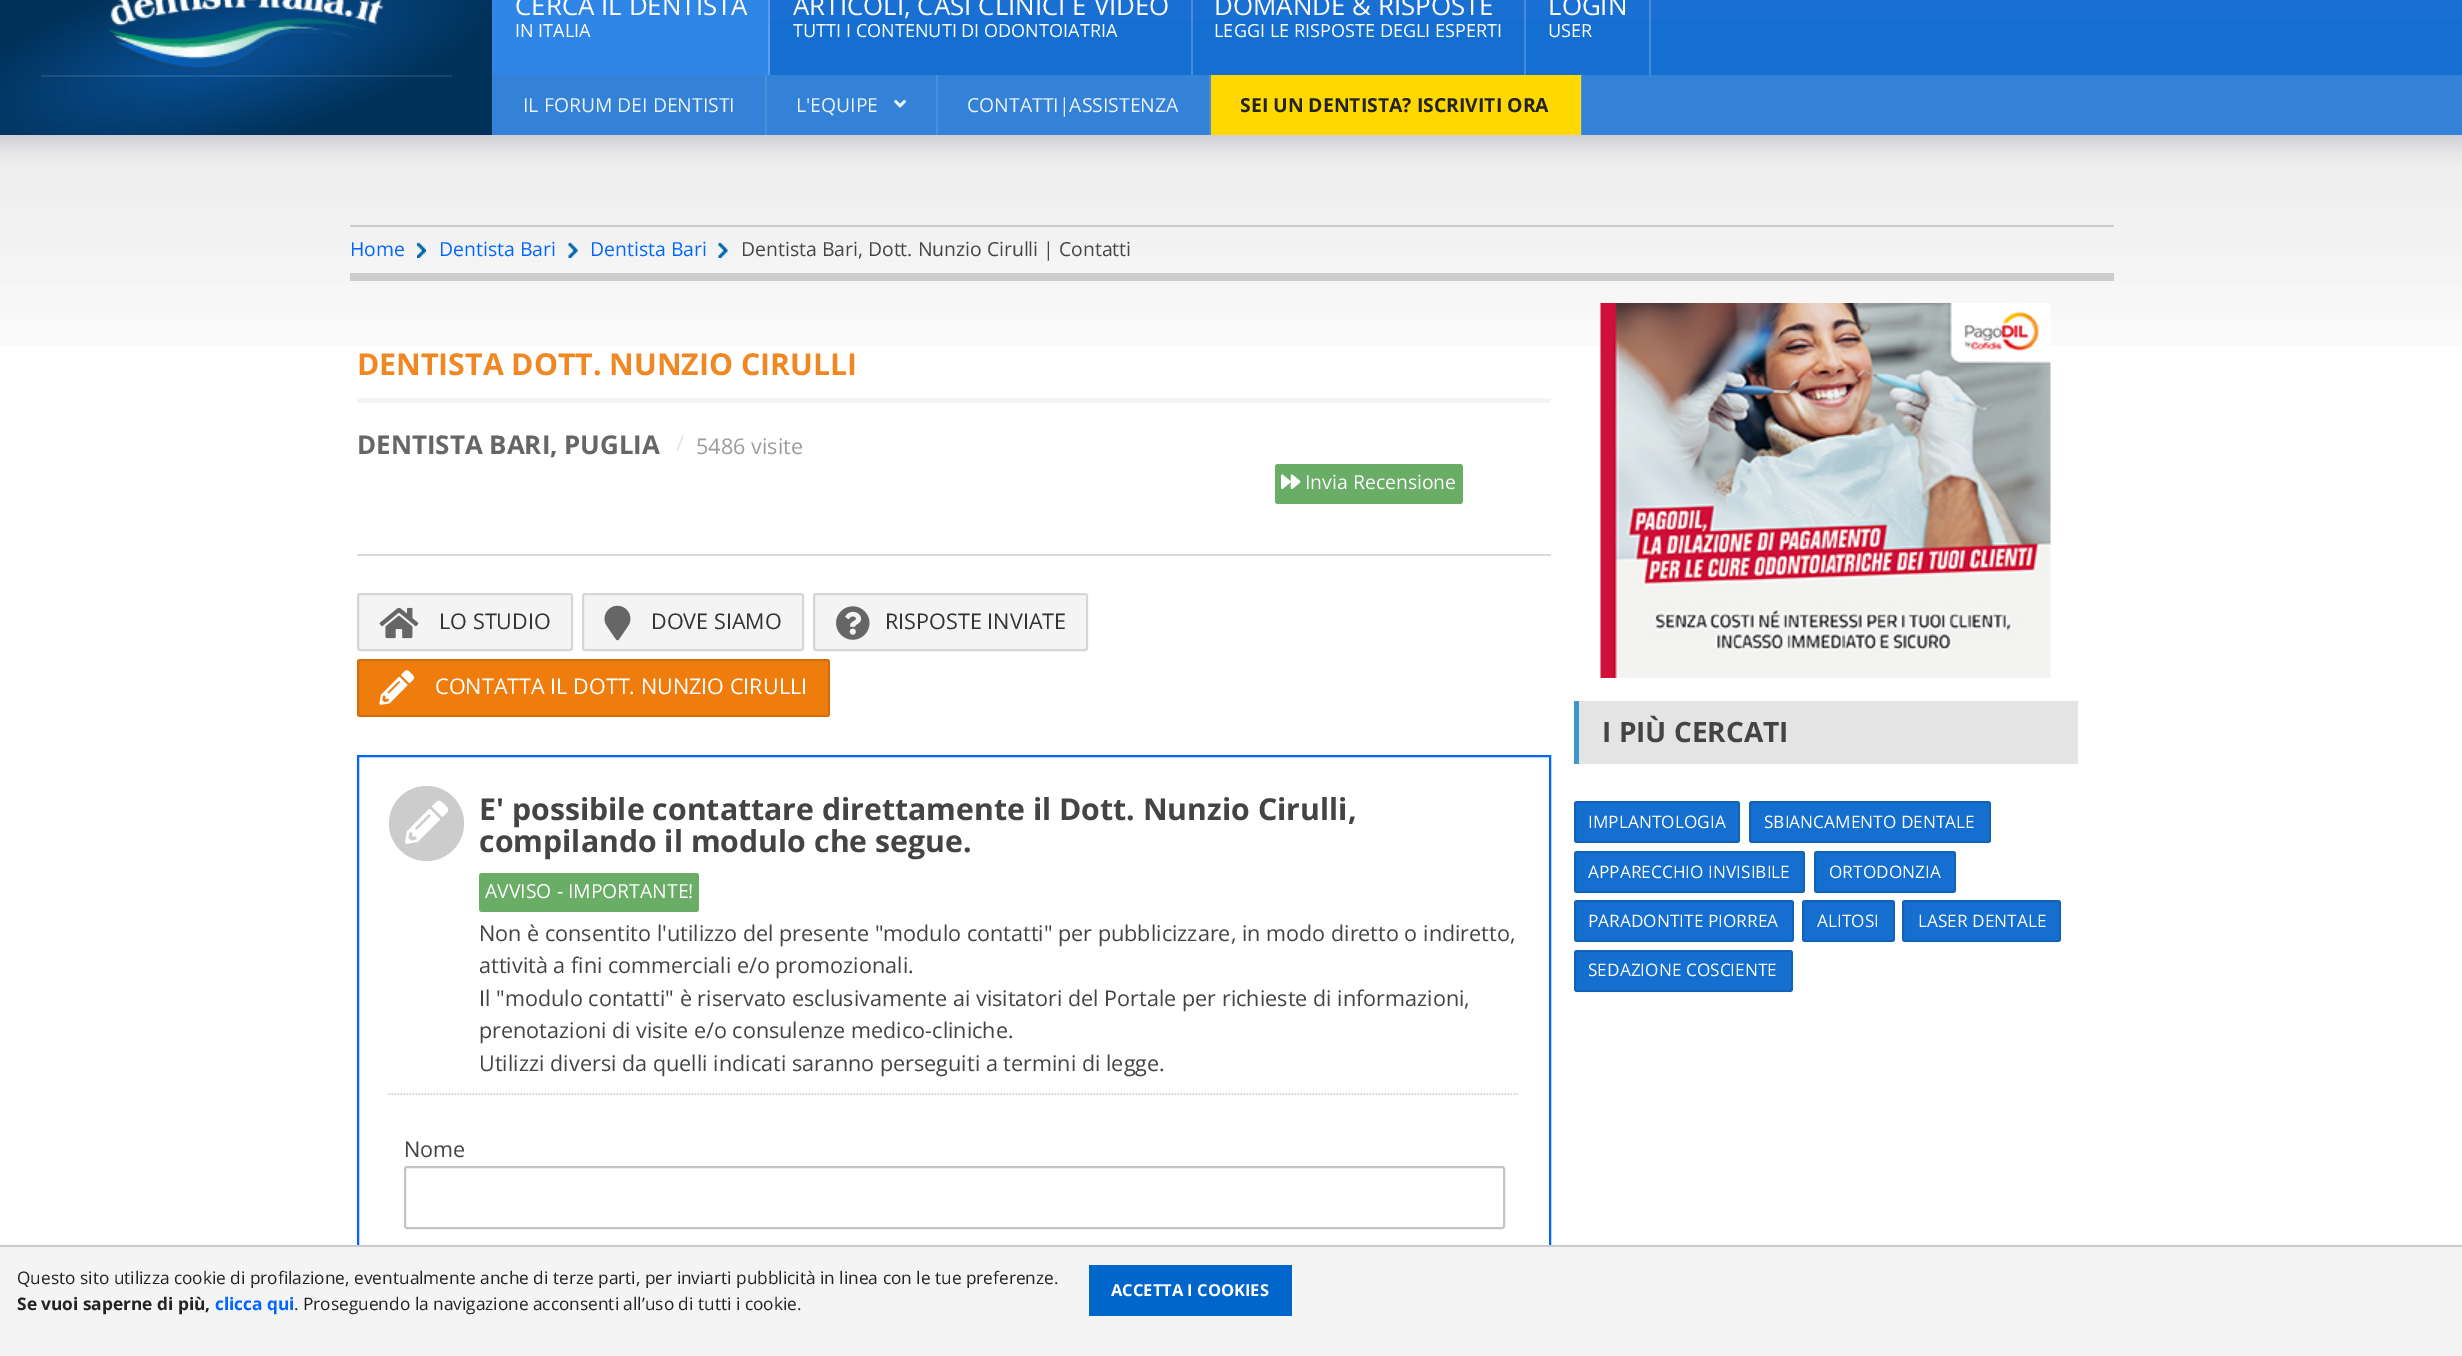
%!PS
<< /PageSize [2462 1356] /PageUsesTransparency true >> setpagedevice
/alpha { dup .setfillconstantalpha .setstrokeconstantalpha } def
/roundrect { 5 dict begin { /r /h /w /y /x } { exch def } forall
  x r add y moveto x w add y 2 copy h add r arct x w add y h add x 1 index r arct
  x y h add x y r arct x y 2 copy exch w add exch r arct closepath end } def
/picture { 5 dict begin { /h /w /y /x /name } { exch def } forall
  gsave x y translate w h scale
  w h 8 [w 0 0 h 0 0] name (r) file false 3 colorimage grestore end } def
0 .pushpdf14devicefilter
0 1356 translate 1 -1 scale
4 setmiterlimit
1 setgray
0 0 2462 1356 rectfill
(img1.rgb) 0 135 2462 211 picture
0 0.192 0.345 setrgbcolor
0 0 492 135 rectfill
(img2.rgb) 0 0 492 135 picture
0.1 alpha
1 setgray
41 75 411 2 rectfill
1 alpha
(img3.rgb) 108 0 276 71 picture
0.078 0.435 0.82 setrgbcolor
770 21 1692 54 rectfill
0.102 0.439 0.824 setrgbcolor
770 0 1692 21 rectfill
0.184 0.525 0.902 setrgbcolor
492 0 276 75 rectfill
0.349 0.62 0.922 setrgbcolor
768 0 2 75 rectfill
/OpenSans-Regular [25.9 0 0 -25.9 0 0] selectfont
1 setgray
515 15 moveto (CERCA IL DENTISTA) show
/OpenSans-Regular [18.1 0 0 -18.1 0 0] selectfont
515 37 moveto (IN ITALIA) show
0.2 alpha
1191 0 2 75 rectfill
/OpenSans-Regular [25.9 0 0 -25.9 0 0] selectfont
1 alpha
793 15 moveto (ARTICOLI, CASI CLINICI E VIDEO) show
/OpenSans-Regular [18.1 0 0 -18.1 0 0] selectfont
793 37 moveto (TUTTI I CONTENUTI DI ODONTOIATRIA) show
0.2 alpha
1524 0 2 75 rectfill
/OpenSans-Regular [25.9 0 0 -25.9 0 0] selectfont
1 alpha
1214 15 moveto (DOMANDE & RISPOSTE) show
/OpenSans-Regular [18.1 0 0 -18.1 0 0] selectfont
1214 37 moveto (LEGGI LE RISPOSTE DEGLI ESPERTI) show
0.2 alpha
1649 0 2 75 rectfill
/OpenSans-Regular [25.9 0 0 -25.9 0 0] selectfont
1 alpha
1548 15 moveto (LOGIN) show
/OpenSans-Regular [18.1 0 0 -18.1 0 0] selectfont
1548 37 moveto (USER) show
0.2 0.51 0.843 setrgbcolor
492 75 1970 60 rectfill
0.278 0.561 0.859 setrgbcolor
765 75 2 60 rectfill
/OpenSans-Regular [19.4 0 0 -19.4 0 0] selectfont
0.922 0.953 0.984 setrgbcolor
523 112 moveto (IL FORUM DEI DENTISTI) show
0.278 0.561 0.859 setrgbcolor
936 75 2 60 rectfill
0.922 0.953 0.984 setrgbcolor
796 112 moveto (L'EQUIPE) show
(img4.rgb) 894 99 13 9 picture
0.278 0.561 0.859 setrgbcolor
1209 75 2 60 rectfill
0.922 0.953 0.984 setrgbcolor
967 112 moveto (CONTATTI|ASSISTENZA) show
1 0.847 0 setrgbcolor
1211 75 370 60 rectfill
0.1 alpha
1 setgray
1580 75 2 60 rectfill
/OpenSans-Bold [19.4 0 0 -19.4 0 0] selectfont
1 alpha
0.137 setgray
1240 112 moveto (SEI UN DENTISTA? ISCRIVITI ORA) show
0.8 setgray
350 225 1764 2 rectfill
350 273 1764 8 rectfill
/OpenSans-Regular [19.4 0 0 -19.4 0 0] selectfont
0 0.4 1 setrgbcolor
350 256 moveto (Home) show
(img5.rgb) 417 242 9 16 picture
439 256 moveto (Dentista Bari) show
(img6.rgb) 568 242 10 16 picture
590 256 moveto (Dentista Bari) show
(img6.rgb) 718 242 10 16 picture
0.267 setgray
741 256 moveto (Dentista Bari, Dott. Nunzio Cirulli | Contatti) show
0.855 setgray
357 554 1194 2 rectfill
0.957 setgray
357 398 1194 5 rectfill
/OpenSans-Bold [30.25 0 0 -30.25 0 0] selectfont
0.937 0.529 0.133 setrgbcolor
357 375 moveto (DENTISTA DOTT. NUNZIO CIRULLI) show
/OpenSans-Bold [25.9 0 0 -25.9 0 0] selectfont
0.4 setgray
357 454 moveto (DENTISTA BARI, PUGLIA) show
/OpenSans-Regular [21.6 0 0 -21.6 0 0] selectfont
0.882 setgray
676 451 moveto (/) show
0.612 setgray
696 454 moveto (5486 visite) show
0.412 0.678 0.404 setrgbcolor
1275 464 188 40 3 roundrect fill
(img7.rgb) 1281 474 20 15 picture
/OpenSans-Regular [19.4 0 0 -19.4 0 0] selectfont
1 setgray
1305 489 moveto (Invia Recensione) show
0.957 setgray
357 593 216 58 3 roundrect fill
0.12 alpha
0 setgray
2 setlinewidth
358 594 214 56 2 roundrect stroke
1 alpha
(img8.rgb) 379 607 40 32 picture
/OpenSans-Regular [21.6 0 0 -21.6 0 0] selectfont
0.2 setgray
439 629 moveto (LO STUDIO) show
0.957 setgray
582 593 222 58 3 roundrect fill
0.12 alpha
0 setgray
583 594 220 56 2 roundrect stroke
1 alpha
(img9.rgb) 604 605 27 36 picture
0.2 setgray
651 629 moveto (DOVE SIAMO) show
0.957 setgray
813 593 275 58 3 roundrect fill
0.12 alpha
0 setgray
814 594 273 56 2 roundrect stroke
1 alpha
(img10.rgb) 836 606 34 34 picture
0.2 setgray
885 629 moveto (RISPOSTE INVIATE) show
0.933 0.49 0.051 setrgbcolor
357 659 473 58 3 roundrect fill
0.12 alpha
0 setgray
358 660 471 56 2 roundrect stroke
1 alpha
(img11.rgb) 379 670 35 35 picture
1 setgray
435 694 moveto (CONTATTA IL DOTT. NUNZIO CIRULLI) show
0 0.4 1 setrgbcolor
358 756 1192 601 rectstroke
0.8 setgray
1.5 setlinewidth
[1.5 1.5] 0 setdash
newpath 388.5 1094 moveto 1519.5 1094 lineto stroke
newpath 426.5 823.5 37.5 0 360 arc closepath fill
(img12.rgb) 405 800 44 44 picture
/OpenSans-Bold [30.25 0 0 -30.25 0 0] selectfont
0.267 setgray
479 820 moveto (E' possibile contattare direttamente il Dott. Nunzio Cirulli,) show
479 852 moveto (compilando il modulo che segue.) show
0.412 0.678 0.404 setrgbcolor
479 873 220 39 3 roundrect fill
/OpenSans-Regular [19.4 0 0 -19.4 0 0] selectfont
1 setgray
485 898 moveto (AVVISO - IMPORTANTE!) show
/OpenSans-Regular [21.6 0 0 -21.6 0 0] selectfont
0.267 setgray
479 941 moveto (Non è consentito l'utilizzo del presente "modulo contatti" per pubblicizzare, in modo diretto o indiretto,) show
479 973 moveto (attività a fini commerciali e/o promozionali.) show
479 1006 moveto (Il "modulo contatti" è riservato esclusivamente ai visitatori del Portale per richieste di informazioni,) show
479 1038 moveto (prenotazioni di visite e/o consulenze medico-cliniche.) show
479 1071 moveto (Utilizzi diversi da quelli indicati saranno perseguiti a termini di legge.) show
404 1157 moveto (Nome) show
0.769 setgray
2 setlinewidth
[] 0 setdash
405 1167 1099 61 2 roundrect stroke
(img13.rgb) 1600 303 451 375 picture
0.894 setgray
1579 701 499 63 rectfill
0.235 0.596 0.792 setrgbcolor
1574 701 5 63 rectfill
/OpenSans-Bold [28 0 0 -28 0 0] selectfont
0.267 setgray
1602 742 moveto (I PIÙ CERCATI) show
0.078 0.435 0.82 setrgbcolor
1574 801 166 42 3 roundrect fill
0.12 alpha
0 setgray
1575 802 164 40 2 roundrect stroke
/OpenSans-Regular [17.28 0 0 -17.28 0 0] selectfont
1 alpha
1 setgray
1588 828 moveto (IMPLANTOLOGIA) show
0.078 0.435 0.82 setrgbcolor
1749 801 242 42 3 roundrect fill
0.12 alpha
0 setgray
1750 802 240 40 2 roundrect stroke
1 alpha
1 setgray
1764 828 moveto (SBIANCAMENTO DENTALE) show
0.078 0.435 0.82 setrgbcolor
1574 851 231 42 3 roundrect fill
0.12 alpha
0 setgray
1575 852 229 40 2 roundrect stroke
1 alpha
1 setgray
1588 878 moveto (APPARECCHIO INVISIBILE) show
0.078 0.435 0.82 setrgbcolor
1814 851 142 42 3 roundrect fill
0.12 alpha
0 setgray
1815 852 140 40 2 roundrect stroke
1 alpha
1 setgray
1829 878 moveto (ORTODONZIA) show
0.078 0.435 0.82 setrgbcolor
1574 900 220 42 3 roundrect fill
0.12 alpha
0 setgray
1575 901 218 40 2 roundrect stroke
1 alpha
1 setgray
1588 927 moveto (PARADONTITE PIORREA) show
0.078 0.435 0.82 setrgbcolor
1802 900 93 42 3 roundrect fill
0.12 alpha
0 setgray
1803 901 91 40 2 roundrect stroke
1 alpha
1 setgray
1817 927 moveto (ALITOSI) show
0.078 0.435 0.82 setrgbcolor
1902 900 159 42 3 roundrect fill
0.12 alpha
0 setgray
1903 901 157 40 2 roundrect stroke
1 alpha
1 setgray
1918 927 moveto (LASER DENTALE) show
0.078 0.435 0.82 setrgbcolor
1574 950 219 42 3 roundrect fill
0.12 alpha
0 setgray
1575 951 217 40 2 roundrect stroke
1 alpha
1 setgray
1588 976 moveto (SEDAZIONE COSCIENTE) show
0.957 setgray
0 1247 2462 109 rectfill
0.8 setgray
0 1245 2462 2 rectfill
0.137 setgray
17 1284 moveto (Questo sito utilizza cookie di profilazione, eventualmente anche di terze parti, per inviarti pubblicità in linea con le tue preferenze.) show
/OpenSans-Bold [17.28 0 0 -17.28 0 0] selectfont
17 1310 moveto (Se vuoi saperne di più,) show
0 0.4 1 setrgbcolor
215 1310 moveto (clicca qui) show
/OpenSans-Regular [17.28 0 0 -17.28 0 0] selectfont
0.137 setgray
294 1310 moveto (. Proseguendo la navigazione acconsenti all’uso di tutti i cookie.) show
0 0.4 0.8 setrgbcolor
1089 1265 203 51 rectfill
/OpenSans-Bold [16.5 0 0 -16.5 0 0] selectfont
1 setgray
1111 1296 moveto (ACCETTA I COOKIES) show
.poppdf14devicefilter showpage
